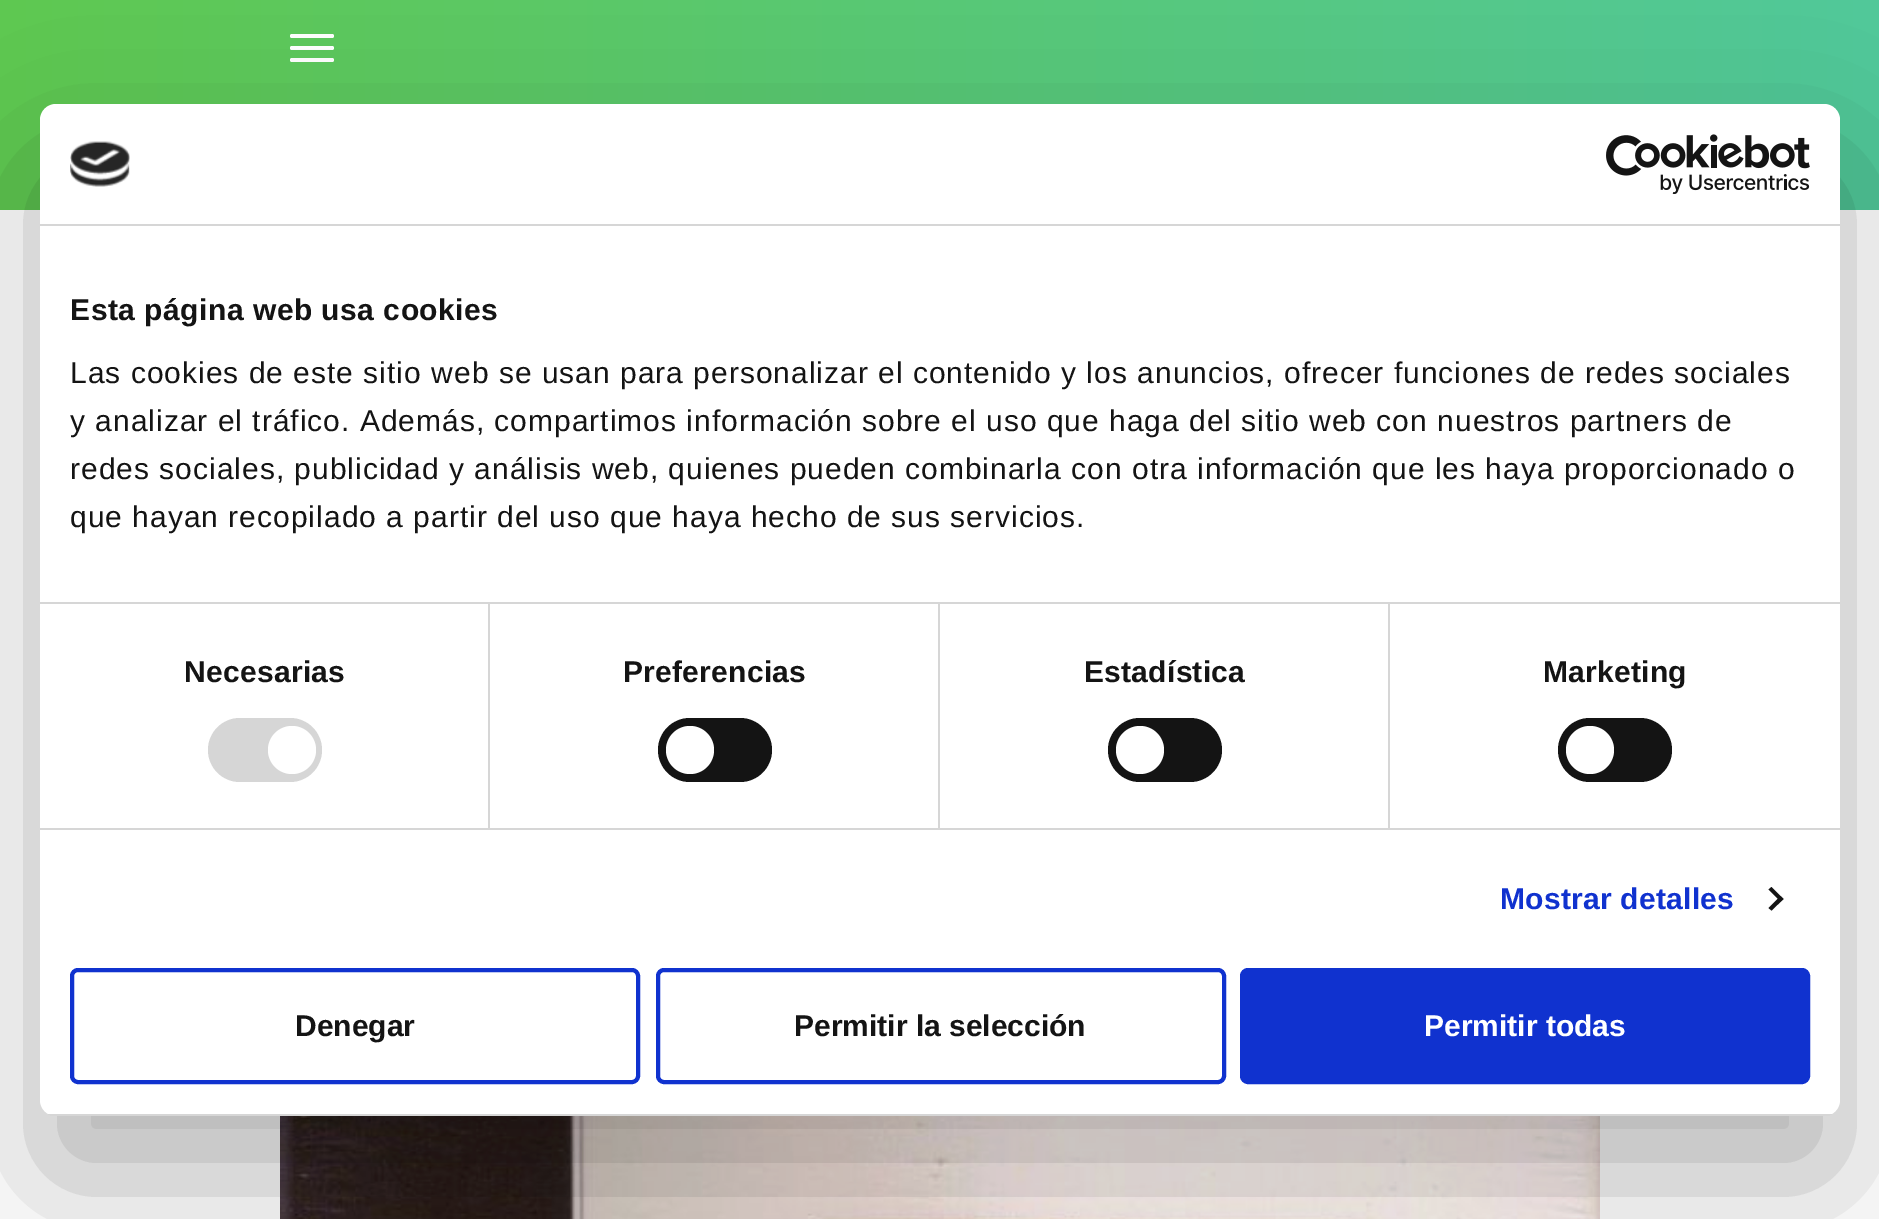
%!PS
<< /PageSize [1879 1219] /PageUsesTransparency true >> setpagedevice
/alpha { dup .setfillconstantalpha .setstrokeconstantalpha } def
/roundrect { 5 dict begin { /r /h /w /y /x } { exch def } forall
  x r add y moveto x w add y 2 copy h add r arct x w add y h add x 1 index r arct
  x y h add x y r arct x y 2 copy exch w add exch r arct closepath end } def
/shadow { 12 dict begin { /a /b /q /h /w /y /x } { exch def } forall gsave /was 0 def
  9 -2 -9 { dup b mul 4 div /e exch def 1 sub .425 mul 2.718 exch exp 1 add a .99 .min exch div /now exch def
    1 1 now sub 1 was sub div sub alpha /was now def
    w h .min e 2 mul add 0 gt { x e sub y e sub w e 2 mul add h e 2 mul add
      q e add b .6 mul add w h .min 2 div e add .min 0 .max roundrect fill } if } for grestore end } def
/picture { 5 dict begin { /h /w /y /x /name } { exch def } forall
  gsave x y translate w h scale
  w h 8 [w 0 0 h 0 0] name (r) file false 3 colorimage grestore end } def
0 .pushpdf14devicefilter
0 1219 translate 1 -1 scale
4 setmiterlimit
1 setgray
0 0 1879 1219 rectfill
gsave newpath 0 0 moveto 1879 0 lineto 1879 210 lineto 0 210 lineto closepath clip newpath
<< /ShadingType 2 /ColorSpace /DeviceRGB /Coords [0 105 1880 105] /Extend [true true] /Function << /FunctionType 2 /Domain [0 1] /C0 [0.373 0.784 0.318] /C1 [0.318 0.784 0.604] /N 1 >> >> shfill grestore
290 34 44 4 2 roundrect fill
290 46 44 4 2 roundrect fill
290 58 44 4 2 roundrect fill
(img3.rgb) 280 1116 1320 103 picture
0 setgray
40 168 1800 1012 16 68 0.3 shadow
1 setgray
40 104 1800 1012 16 roundrect fill
0.839 setgray
40 224 1800 2 rectfill
(img1.rgb) 70 141 60 46 picture
(img2.rgb) 1606 134 204 60 picture
40 602 1800 2 rectfill
/LiberationSans-Bold [30 0 0 -30 0 0] selectfont
0.078 setgray
70 320 moveto 0.5 0 (Esta página web usa cookies) ashow
/LiberationSans-Regular [30 0 0 -30 0 0] selectfont
70 383 moveto 1 0 (Las cookies de este sitio web se usan para personalizar el contenido y los anuncios, ofrecer funciones de redes sociales) ashow
70 431 moveto 1 0 (y analizar el tráfico. Además, compartimos información sobre el uso que haga del sitio web con nuestros partners de) ashow
70 479 moveto 1 0 (redes sociales, publicidad y análisis web, quienes pueden combinarla con otra información que les haya proporcionado o) ashow
70 527 moveto 1 0 (que hayan recopilado a partir del uso que haya hecho de sus servicios.) ashow
0.839 setgray
40 828 1800 2 rectfill
488 604 2 224 rectfill
/LiberationSans-Bold [30 0 0 -30 0 0] selectfont
0.078 setgray
184 682 moveto 0.25 0 (Necesarias) ashow
0.839 setgray
208 718 114 64 32 roundrect fill
1 setgray
newpath 292 750 24 0 360 arc closepath fill
0.839 setgray
938 604 2 224 rectfill
0.078 setgray
623 682 moveto 0.25 0 (Preferencias) ashow
658 718 114 64 32 roundrect fill
1 setgray
newpath 690 750 24 0 360 arc closepath fill
0.839 setgray
1388 604 2 224 rectfill
0.078 setgray
1084 682 moveto 0.25 0 (Estadística) ashow
1108 718 114 64 32 roundrect fill
1 setgray
newpath 1140 750 24 0 360 arc closepath fill
0.078 setgray
1543 682 moveto 0.25 0 (Marketing) ashow
1558 718 114 64 32 roundrect fill
1 setgray
newpath 1590 750 24 0 360 arc closepath fill
0.063 0.196 0.812 setrgbcolor
1500 909 moveto 0.25 0 (Mostrar detalles) ashow
0.078 setgray
newpath 1771.5 887 moveto 1783.5 899 lineto 1780.5 901.5 lineto 1768.5 889.5 lineto closepath fill
newpath 1780.5 896 moveto 1783.5 899 lineto 1771.5 910.5 lineto 1768.5 908 lineto closepath fill
gsave
40 104 1800 1012 16 roundrect clip newpath
0.839 setgray
40 1114 1800 2 rectfill
grestore
0.063 0.196 0.812 setrgbcolor
4 setlinewidth
72 970 566 112 6 roundrect stroke
0.078 setgray
295 1036 moveto (Denegar) show
0.063 0.196 0.812 setrgbcolor
658 970 566 112 6 roundrect stroke
0.078 setgray
794 1036 moveto (Permitir la selección) show
0.063 0.196 0.812 setrgbcolor
1242 970 566 112 6 roundrect gsave fill grestore
stroke
1 setgray
1424 1036 moveto (Permitir todas) show
.poppdf14devicefilter showpage
